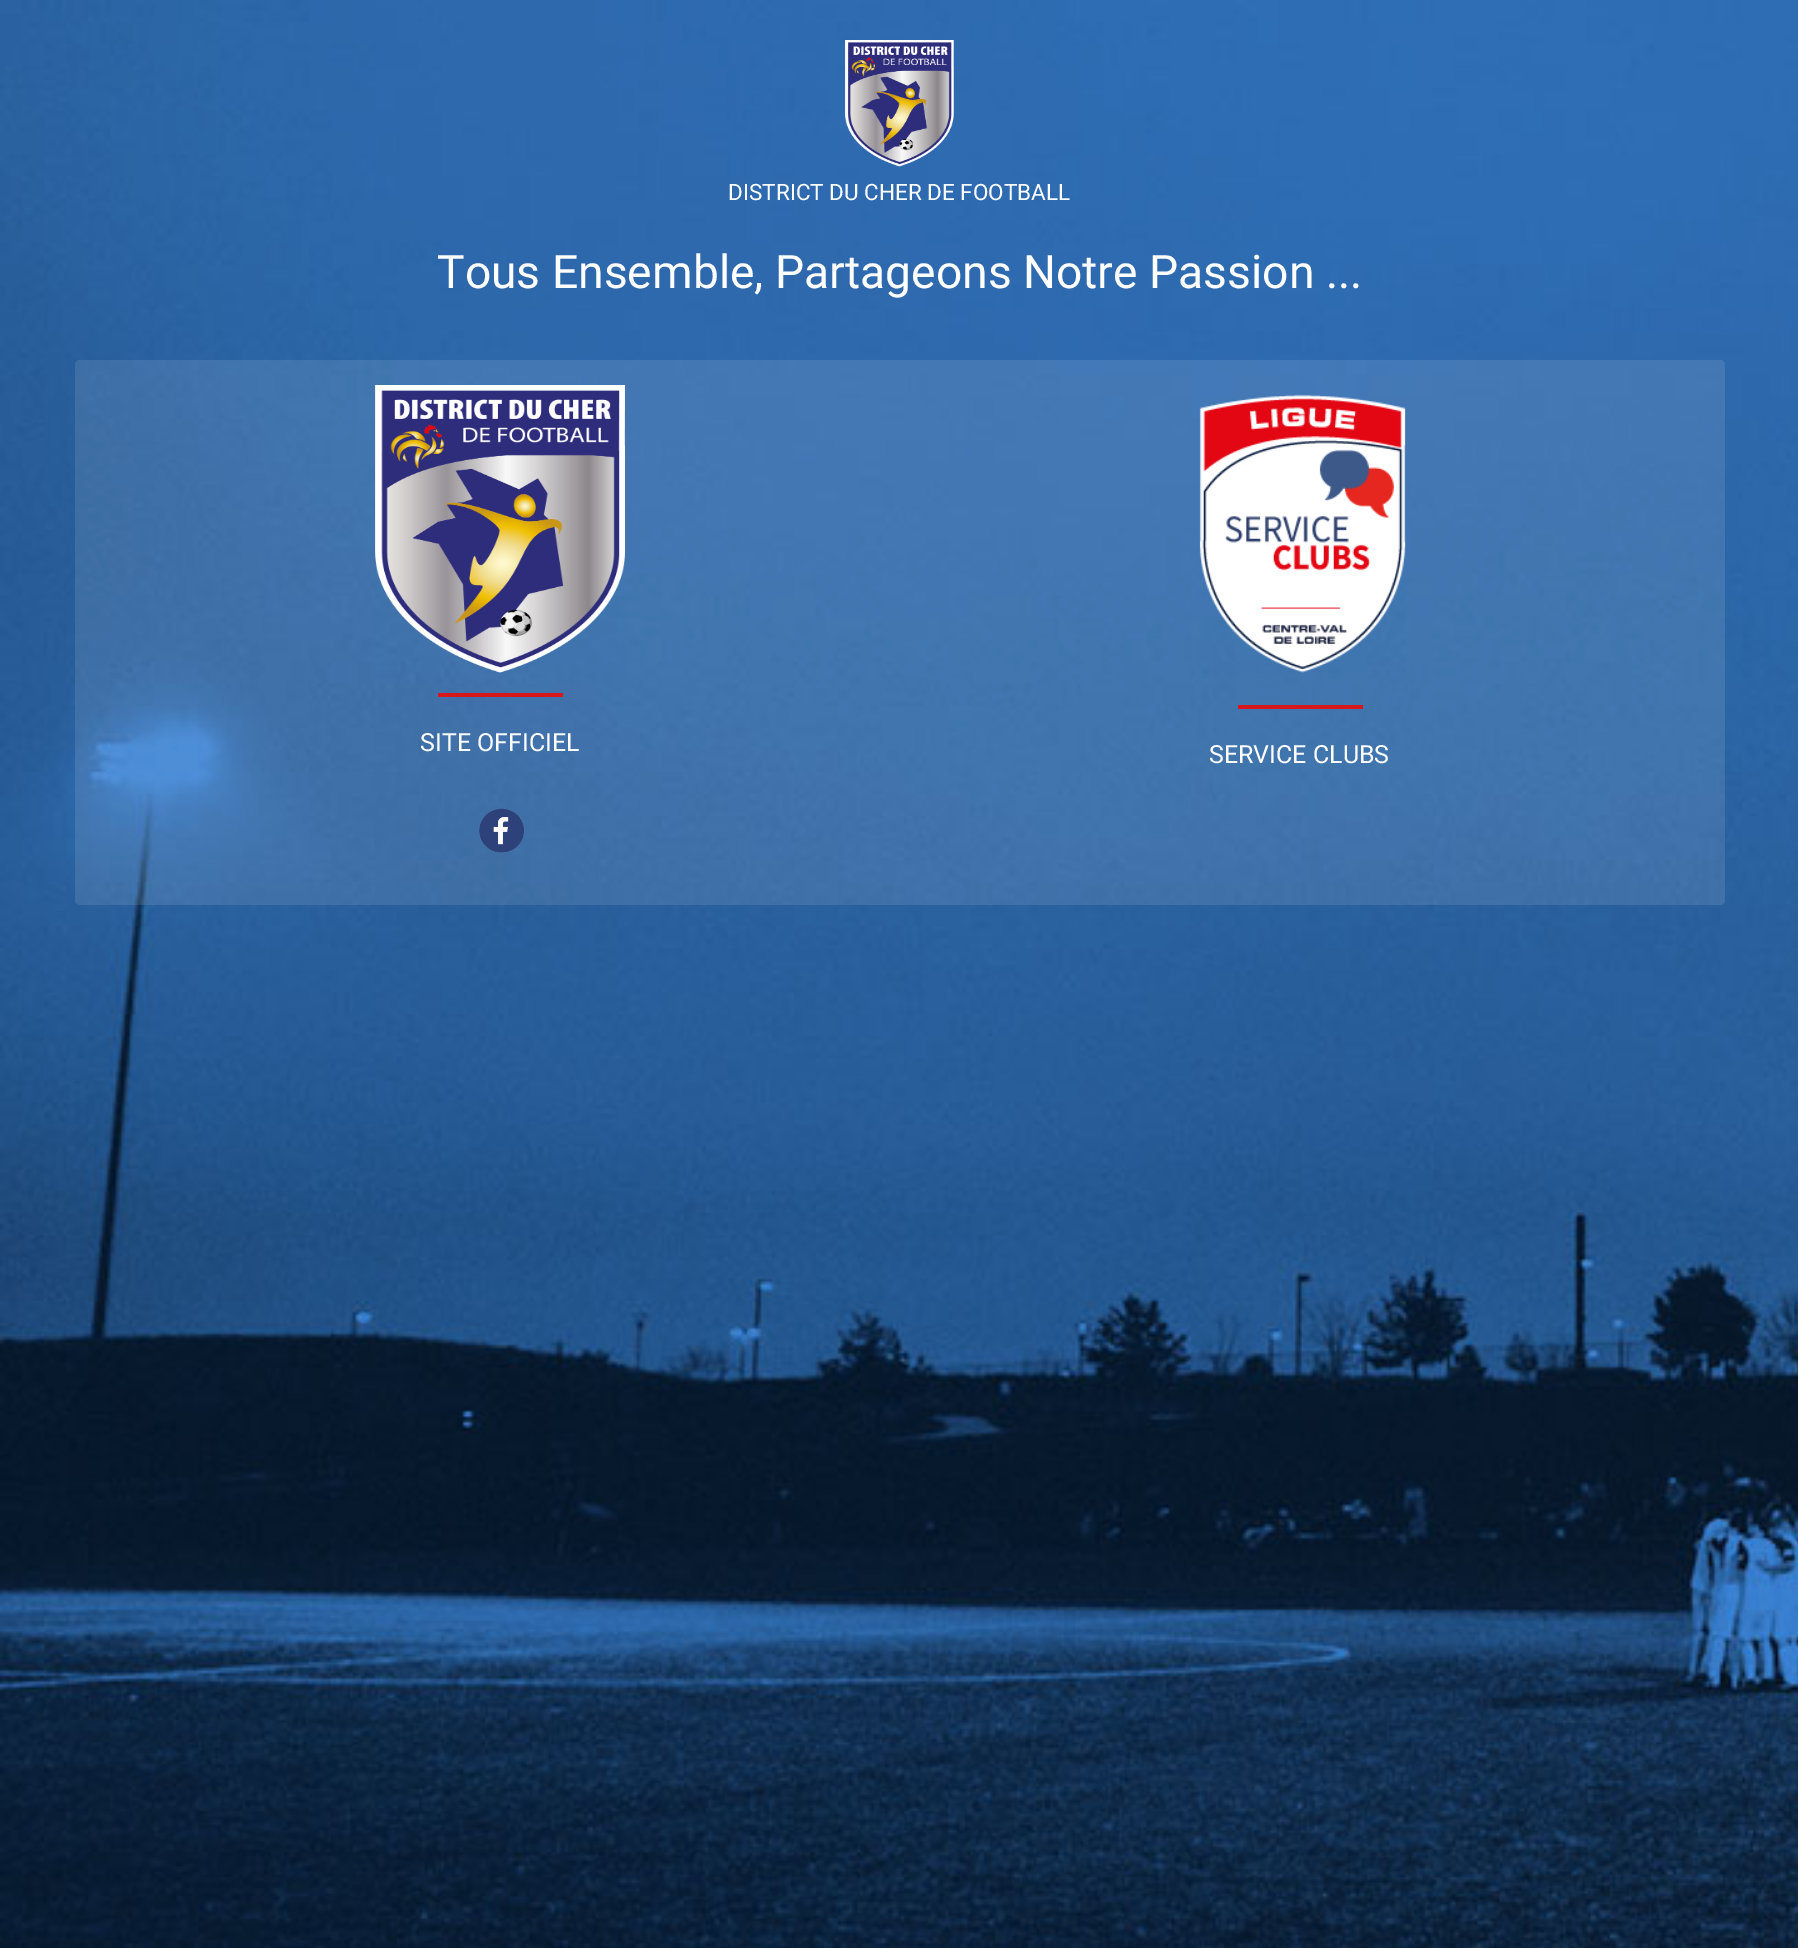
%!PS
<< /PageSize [1798 1948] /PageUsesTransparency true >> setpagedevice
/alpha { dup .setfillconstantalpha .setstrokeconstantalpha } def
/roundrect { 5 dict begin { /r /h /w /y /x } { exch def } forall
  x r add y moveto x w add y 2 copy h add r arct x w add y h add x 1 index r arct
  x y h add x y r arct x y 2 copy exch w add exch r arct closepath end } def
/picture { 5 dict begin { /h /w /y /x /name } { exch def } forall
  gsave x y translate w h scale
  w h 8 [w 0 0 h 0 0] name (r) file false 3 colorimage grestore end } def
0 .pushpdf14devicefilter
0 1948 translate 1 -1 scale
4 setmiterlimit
1 setgray
0 0 1798 1948 rectfill
(img1.rgb) 0 0 1798 1948 picture
(img2.rgb) 845 40 109 127 picture
/Roboto-Regular [22.5 0 0 -22.5 0 0] selectfont
728 200 moveto (DISTRICT DU CHER DE FOOTBALL) show
/Roboto-Regular [46.25 0 0 -46.25 0 0] selectfont
437 288 moveto (Tous Ensemble, Partageons Notre Passion ...) show
0.1 alpha
75 360 1650 545 5 roundrect fill
1 alpha
(img3.rgb) 375 385 250 288 picture
0.847 0.09 0.11 setrgbcolor
438 693 125 4 rectfill
/Roboto-Regular [25 0 0 -25 0 0] selectfont
1 setgray
420 751 moveto (SITE OFFICIEL) show
(img4.rgb) 479 808 46 45 picture
(img5.rgb) 1199 394 207 279 picture
0.847 0.09 0.11 setrgbcolor
1238 705 125 4 rectfill
1 setgray
1209 763 moveto (SERVICE CLUBS) show
.poppdf14devicefilter showpage
